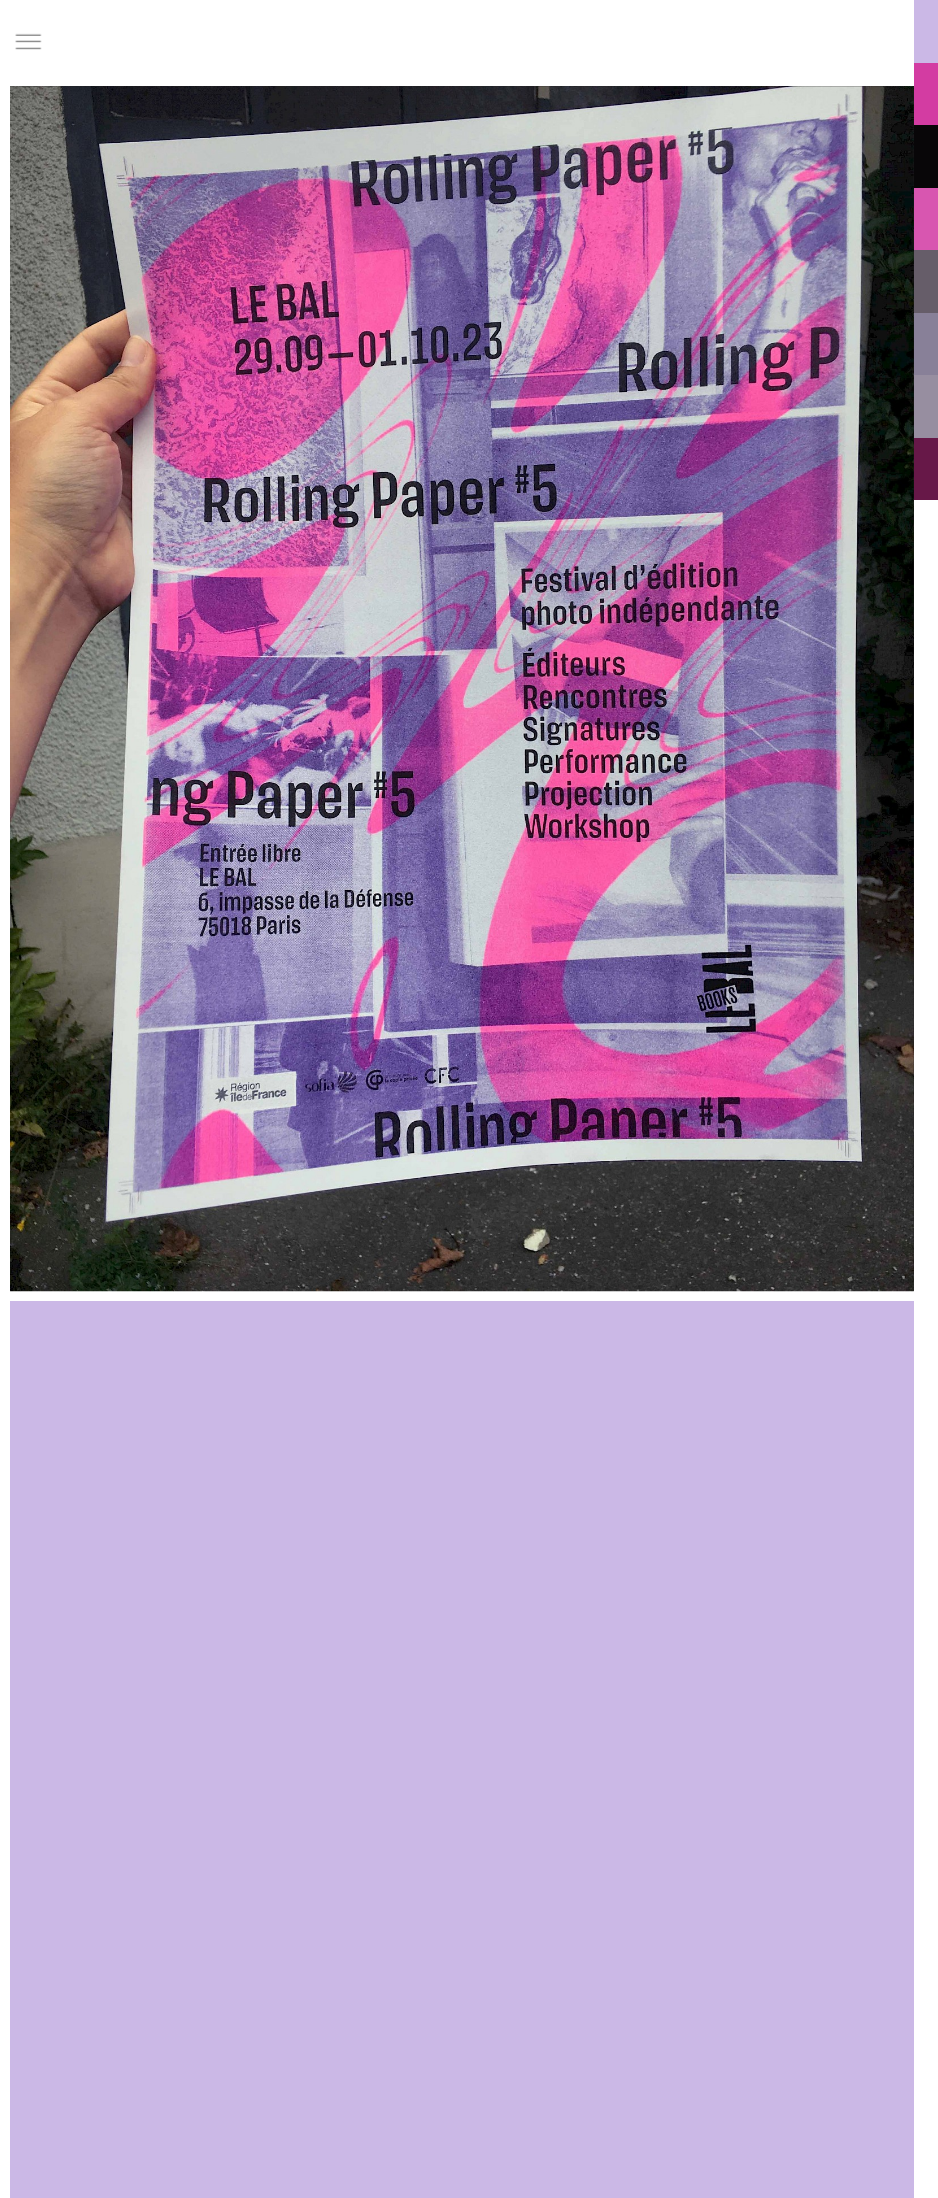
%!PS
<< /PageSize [938 2198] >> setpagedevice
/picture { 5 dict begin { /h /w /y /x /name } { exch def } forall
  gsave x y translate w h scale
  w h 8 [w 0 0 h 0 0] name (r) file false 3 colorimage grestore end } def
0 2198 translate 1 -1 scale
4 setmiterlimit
1 setgray
0 0 938 2198 rectfill
0.137 0.133 0.141 setrgbcolor
10 86 904 1205 rectfill
(img1.rgb) 10 86 904 1206 picture
0.796 0.722 0.902 setrgbcolor
10 1301 904 897 rectfill
914 0 24 63 rectfill
0.827 0.235 0.635 setrgbcolor
914 63 24 62 rectfill
0.031 0.024 0.031 setrgbcolor
914 125 24 63 rectfill
0.847 0.337 0.69 setrgbcolor
914 188 24 62 rectfill
0.4 0.365 0.412 setrgbcolor
914 250 24 63 rectfill
0.533 0.502 0.596 setrgbcolor
914 313 24 62 rectfill
0.592 0.557 0.627 setrgbcolor
914 375 24 63 rectfill
0.404 0.094 0.282 setrgbcolor
914 438 24 62 rectfill
(img2.rgb) 15 33 27 17 picture
showpage
